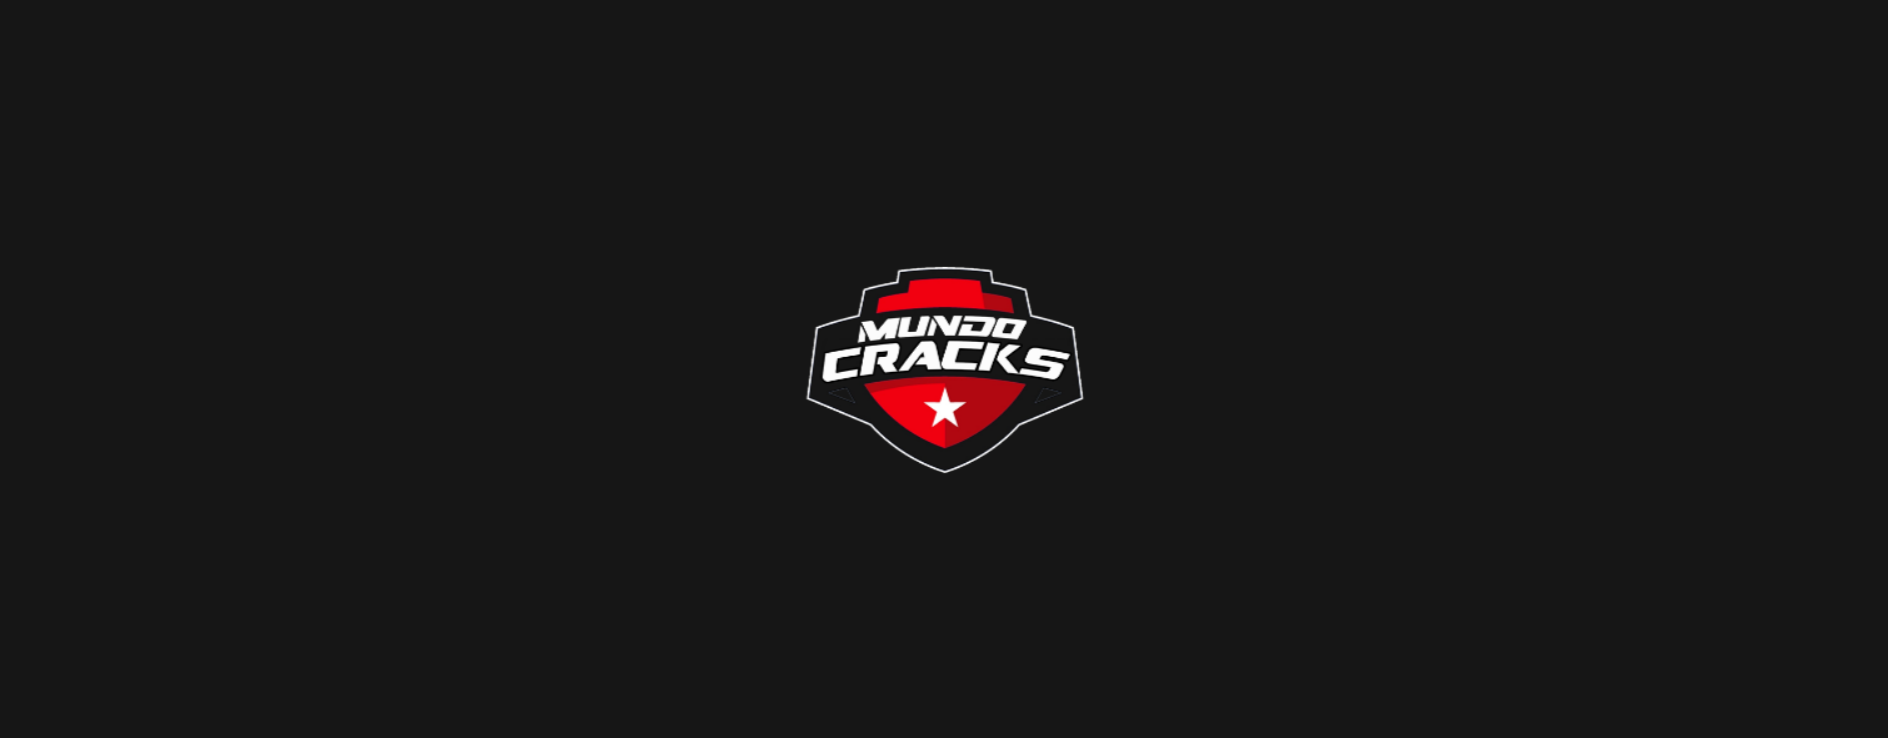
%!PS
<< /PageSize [1888 738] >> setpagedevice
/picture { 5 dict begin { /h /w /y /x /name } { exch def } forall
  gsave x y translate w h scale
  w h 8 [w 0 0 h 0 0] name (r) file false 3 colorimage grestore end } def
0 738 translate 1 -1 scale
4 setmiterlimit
0.086 setgray
0 0 1888 738 rectfill
(img1.rgb) 805 266 280 208 picture
showpage
